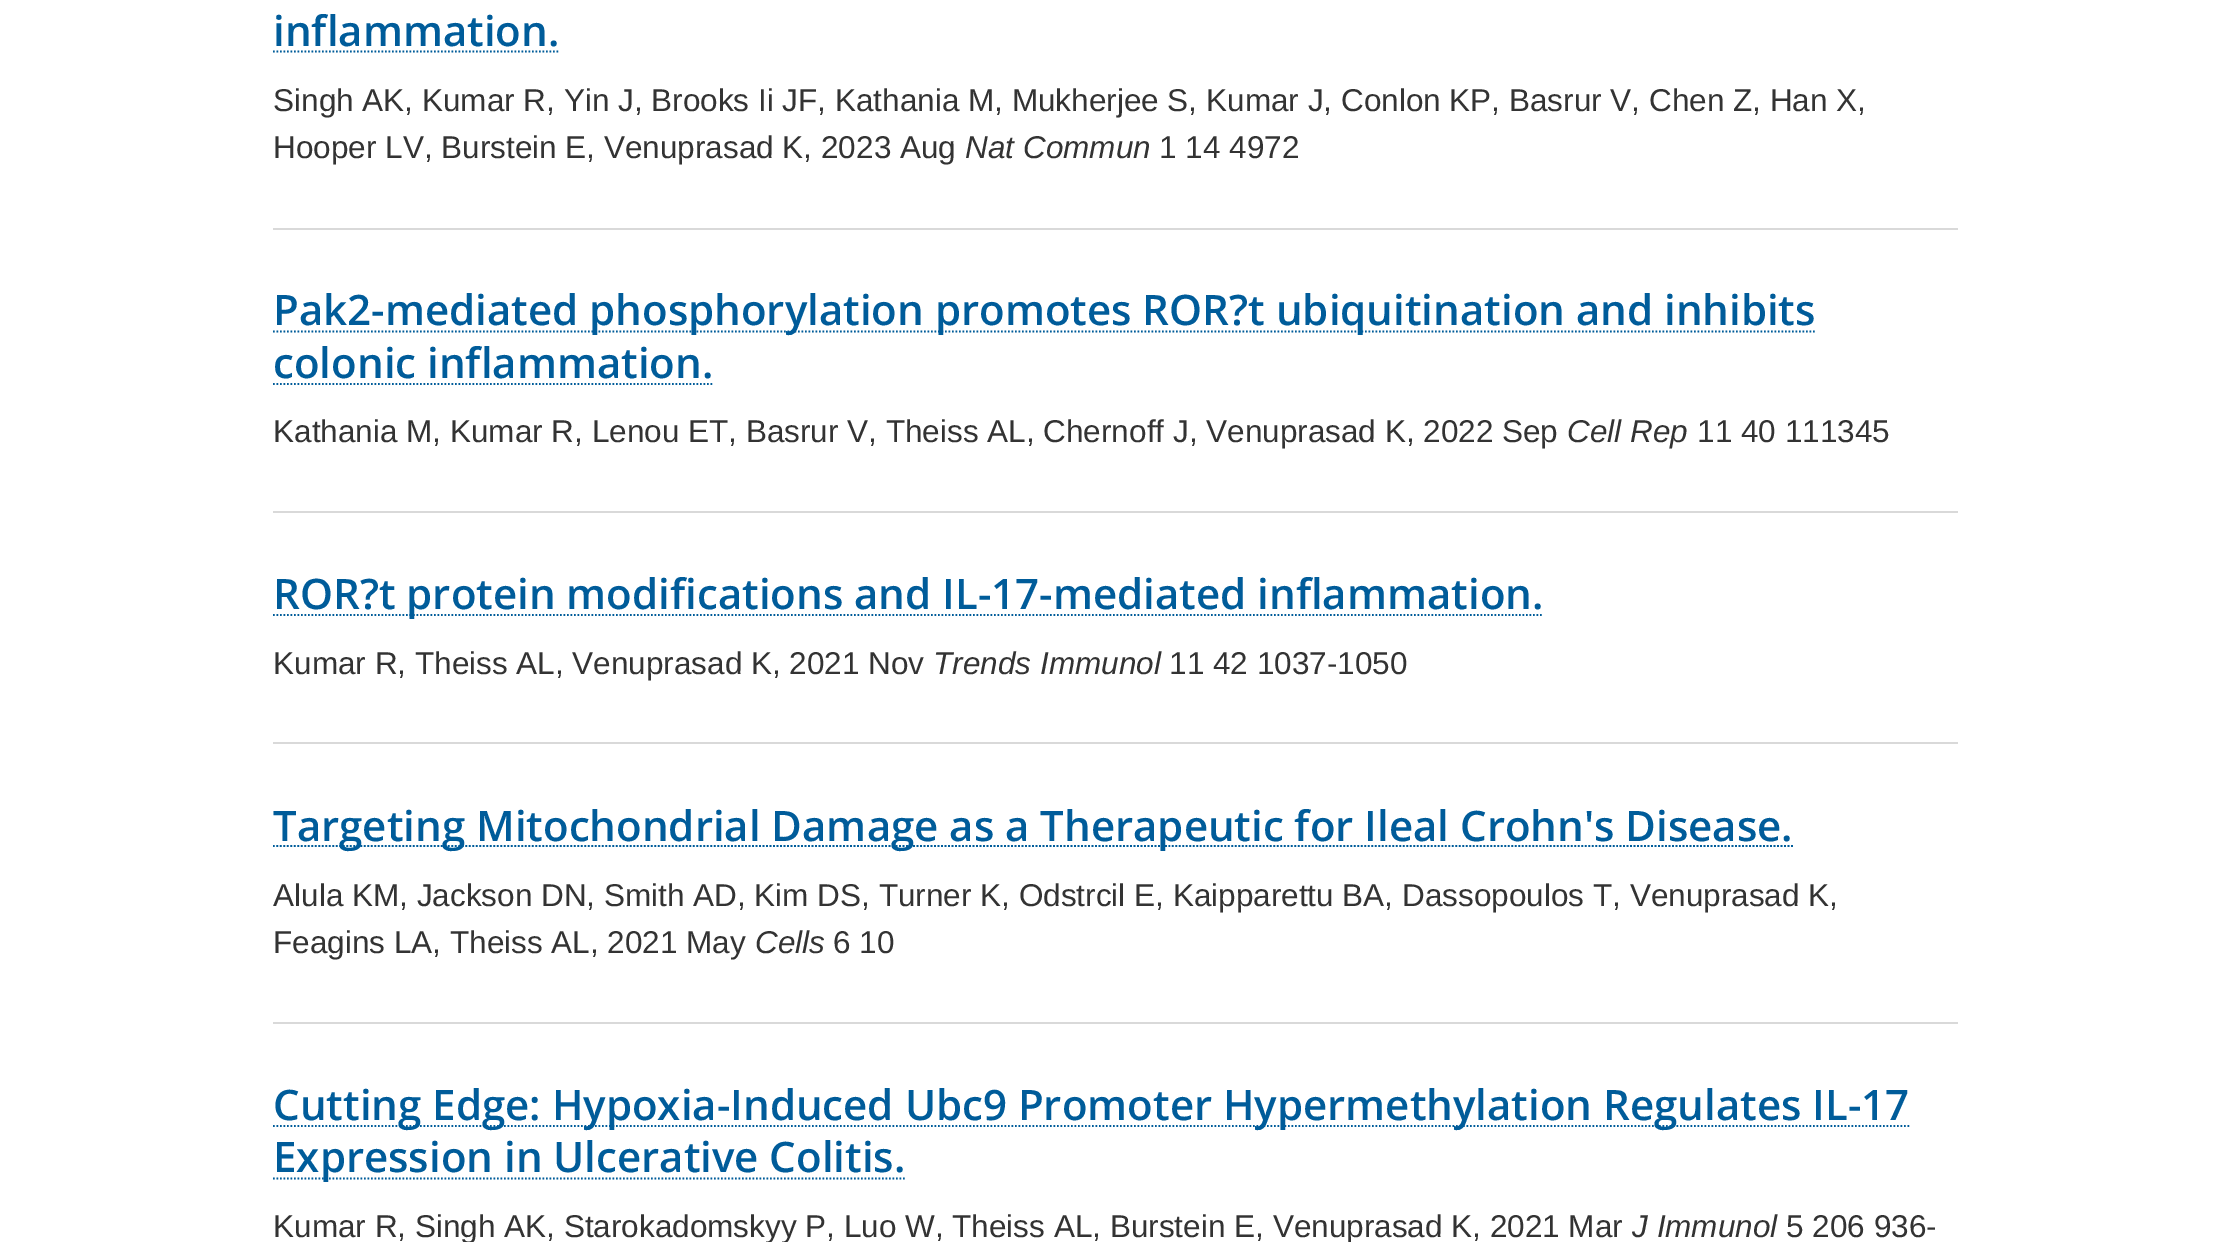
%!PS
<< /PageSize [2231 1242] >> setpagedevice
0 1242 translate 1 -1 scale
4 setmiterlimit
1 setgray
0 0 2231 1242 rectfill
0.851 setgray
273 228 1685 2 rectfill
/OpenSans-SemiBold [42 0 0 -42 0 0] selectfont
0 0.361 0.604 setrgbcolor
273 46 moveto (inflammation.) show
1.8 setlinewidth
[1.75 1.75] 0 setdash
newpath 273 51.5 moveto 559.5 51.5 lineto stroke
/LiberationSans-Regular [31.5 0 0 -31.5 0 0] selectfont
0.2 setgray
273 111 moveto (Singh AK, Kumar R, Yin J, Brooks Ii JF, Kathania M, Mukherjee S, Kumar J, Conlon KP, Basrur V, Chen Z, Han X,) show
273 158 moveto (Hooper LV, Burstein E, Venuprasad K, 2023 Aug) show
/LiberationSans-Italic [31.5 0 0 -31.5 0 0] selectfont
965 158 moveto (Nat Commun) show
/LiberationSans-Regular [31.5 0 0 -31.5 0 0] selectfont
1159 158 moveto (1 14 4972) show
0.851 setgray
273 511 1685 2 rectfill
0 0.361 0.604 setrgbcolor
newpath 273 331.5 moveto 1815.5 331.5 lineto stroke
/OpenSans-SemiBold [42 0 0 -42 0 0] selectfont
273 325 moveto (Pak2-mediated phosphorylation promotes ROR?t ubiquitination and inhibits) show
273 378 moveto (colonic inflammation.) show
newpath 273 384 moveto 713.5 384 lineto stroke
/LiberationSans-Regular [31.5 0 0 -31.5 0 0] selectfont
0.2 setgray
273 442 moveto (Kathania M, Kumar R, Lenou ET, Basrur V, Theiss AL, Chernoff J, Venuprasad K, 2022 Sep) show
/LiberationSans-Italic [31.5 0 0 -31.5 0 0] selectfont
1567 442 moveto (Cell Rep) show
/LiberationSans-Regular [31.5 0 0 -31.5 0 0] selectfont
1697 442 moveto (11 40 111345) show
0.851 setgray
273 742 1685 2 rectfill
0 0.361 0.604 setrgbcolor
newpath 273 615 moveto 1543.5 615 lineto stroke
/OpenSans-SemiBold [42 0 0 -42 0 0] selectfont
273 609 moveto (ROR?t protein modifications and IL-17-mediated inflammation.) show
/LiberationSans-Regular [31.5 0 0 -31.5 0 0] selectfont
0.2 setgray
273 674 moveto (Kumar R, Theiss AL, Venuprasad K, 2021 Nov) show
/LiberationSans-Italic [31.5 0 0 -31.5 0 0] selectfont
933 674 moveto (Trends Immunol) show
/LiberationSans-Regular [31.5 0 0 -31.5 0 0] selectfont
1169 674 moveto (11 42 1037-1050) show
0.851 setgray
273 1022 1685 2 rectfill
0 0.361 0.604 setrgbcolor
newpath 273 846 moveto 1793 846 lineto stroke
/OpenSans-SemiBold [42 0 0 -42 0 0] selectfont
273 841 moveto (Targeting Mitochondrial Damage as a Therapeutic for Ileal Crohn's Disease.) show
/LiberationSans-Regular [31.5 0 0 -31.5 0 0] selectfont
0.2 setgray
273 906 moveto (Alula KM, Jackson DN, Smith AD, Kim DS, Turner K, Odstrcil E, Kaipparettu BA, Dassopoulos T, Venuprasad K,) show
273 953 moveto (Feagins LA, Theiss AL, 2021 May) show
/LiberationSans-Italic [31.5 0 0 -31.5 0 0] selectfont
755 953 moveto (Cells) show
/LiberationSans-Regular [31.5 0 0 -31.5 0 0] selectfont
833 953 moveto (6 10) show
0 0.361 0.604 setrgbcolor
newpath 273 1126 moveto 1909.5 1126 lineto stroke
/OpenSans-SemiBold [42 0 0 -42 0 0] selectfont
273 1120 moveto (Cutting Edge: Hypoxia-Induced Ubc9 Promoter Hypermethylation Regulates IL-17) show
newpath 273 1178.5 moveto 905.5 1178.5 lineto stroke
273 1172 moveto (Expression in Ulcerative Colitis.) show
/LiberationSans-Regular [31.5 0 0 -31.5 0 0] selectfont
0.2 setgray
273 1237 moveto (Kumar R, Singh AK, Starokadomskyy P, Luo W, Theiss AL, Burstein E, Venuprasad K, 2021 Mar) show
/LiberationSans-Italic [31.5 0 0 -31.5 0 0] selectfont
1632 1237 moveto (J Immunol) show
/LiberationSans-Regular [31.5 0 0 -31.5 0 0] selectfont
1786 1237 moveto (5 206 936-) show
showpage
